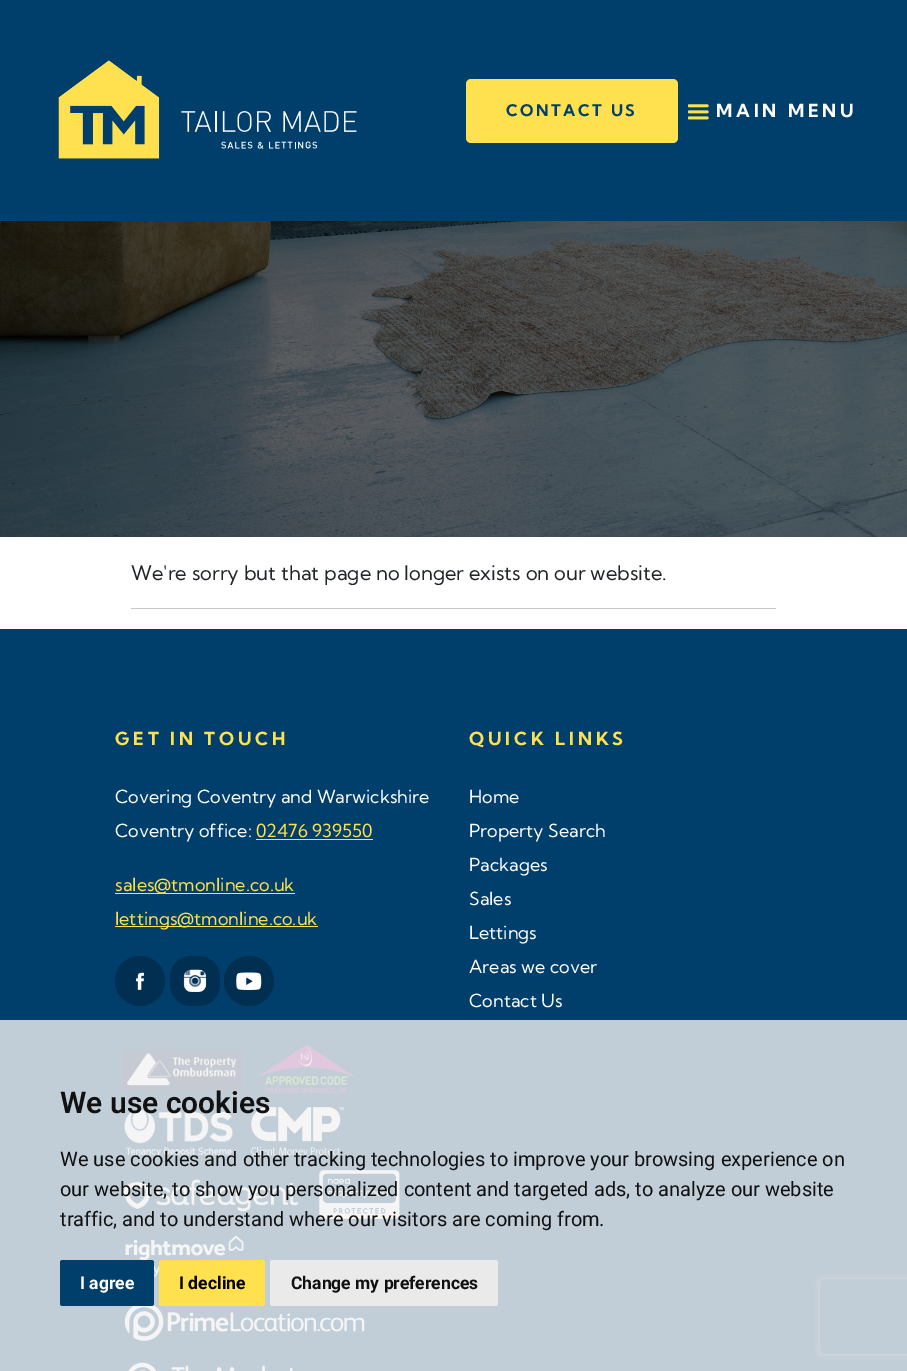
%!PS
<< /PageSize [907 1371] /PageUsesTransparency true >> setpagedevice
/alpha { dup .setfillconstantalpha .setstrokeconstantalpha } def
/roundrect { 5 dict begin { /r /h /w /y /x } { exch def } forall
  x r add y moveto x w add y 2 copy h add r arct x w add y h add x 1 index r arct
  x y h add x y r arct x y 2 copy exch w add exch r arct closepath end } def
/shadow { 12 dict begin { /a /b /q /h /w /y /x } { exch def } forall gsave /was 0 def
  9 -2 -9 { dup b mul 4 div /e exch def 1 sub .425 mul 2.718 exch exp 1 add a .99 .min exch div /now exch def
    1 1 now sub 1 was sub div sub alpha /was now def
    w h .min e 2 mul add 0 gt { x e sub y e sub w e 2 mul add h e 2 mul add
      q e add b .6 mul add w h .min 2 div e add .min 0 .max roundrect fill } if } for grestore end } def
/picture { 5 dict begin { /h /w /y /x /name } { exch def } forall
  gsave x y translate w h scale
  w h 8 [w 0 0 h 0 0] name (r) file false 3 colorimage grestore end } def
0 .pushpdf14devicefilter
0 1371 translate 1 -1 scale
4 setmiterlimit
1 setgray
0 0 907 1371 rectfill
0 0.243 0.42 setrgbcolor
0 0 907 221 rectfill
(img1.rgb) 58 60 299 99 picture
1 0.882 0.31 setrgbcolor
466 79 212 64 5 roundrect fill
/KumbhSans-Bold [16 0 0 -16 0 0] selectfont
0 0.243 0.42 setrgbcolor
506 116 moveto 2.5 0 (CONTACT US) ashow
(img2.rgb) 688 104 21 16 picture
/KumbhSans-Bold [18 0 0 -18 0 0] selectfont
1 setgray
716 117 moveto 3.75 0 (MAIN MENU) ashow
(img3.rgb) 0 221 907 316 picture
/KumbhSans-Regular [20 0 0 -20 0 0] selectfont
0.129 0.145 0.161 setrgbcolor
131 580 moveto (We're sorry but that page no longer exists on our website.) show
0.784 0.788 0.792 setrgbcolor
131 608 645 1 rectfill
0 0.243 0.42 setrgbcolor
0 629 907 391 rectfill
0.761 0.808 0.843 setrgbcolor
0 1020 907 351 rectfill
/KumbhSans-Bold [18 0 0 -18 0 0] selectfont
1 0.882 0.31 setrgbcolor
115 745 moveto 3.75 0 (GET IN TOUCH) ashow
/KumbhSans-Regular [18 0 0 -18 0 0] selectfont
1 setgray
115 803 moveto (Covering Coventry and Warwickshire) show
115 837 moveto (Coventry office:) show
1 0.882 0.31 setrgbcolor
256 837 moveto (02476 939550) show
256 839 117 1 rectfill
115 893 180 1 rectfill
115 891 moveto (sales@tmonline.co.uk) show
115 926 203 1 rectfill
115 925 moveto (lettings@tmonline.co.uk) show
0 0.184 0.322 setrgbcolor
newpath 140 981 25 0 360 arc closepath fill
170 956 50 50 21 roundrect fill
newpath 249 981 25 0 360 arc closepath fill
(img4.rgb) 136 972 8 18 picture
(img5.rgb) 183 969 24 23 picture
(img6.rgb) 236 972 26 18 picture
/KumbhSans-Bold [18 0 0 -18 0 0] selectfont
1 0.882 0.31 setrgbcolor
469 745 moveto 3.75 0 (QUICK LINKS) ashow
/KumbhSans-Regular [18 0 0 -18 0 0] selectfont
1 setgray
469 803 moveto (Home) show
469 837 moveto (Property Search) show
469 871 moveto (Packages) show
469 905 moveto (Sales) show
469 939 moveto (Lettings) show
469 973 moveto (Areas we cover) show
469 1007 moveto (Contact Us) show
(img7.rgb) 121 1045 235 49 picture
(img8.rgb) 124 1108 109 49 picture
(img9.rgb) 251 1107 93 50 picture
(img10.rgb) 123 1179 176 33 picture
(img11.rgb) 319 1170 81 49 picture
(img12.rgb) 125 1235 119 42 picture
(img13.rgb) 124 1305 241 36 picture
(img14.rgb) 128 1362 165 9 picture
/Roboto-SemiBold [30 0 0 -30 0 0] selectfont
0.067 setgray
60 1113 moveto (We use cookies) show
/Roboto-Regular [20 0 0 -20 0 0] selectfont
60 1166 moveto (We use cookies and other tracking technologies to improve your browsing experience on) show
60 1196 moveto (our website, to show you personalized content and targeted ads, to analyze our website) show
60 1226 moveto (traffic, and to understand where our visitors are coming from.) show
0 0.243 0.42 setrgbcolor
60 1260 94 46 2.5 roundrect fill
/Roboto-Bold [17.5 0 0 -17.5 0 0] selectfont
1 setgray
80 1289 moveto (I agree) show
1 0.882 0.31 setrgbcolor
159 1260 106 46 2.5 roundrect fill
0 setgray
179 1289 moveto (I decline) show
0.918 setgray
270 1260 228 46 2.5 roundrect fill
0.067 setgray
291 1289 moveto (Change my preferences) show
gsave
newpath 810 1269 moveto 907 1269 lineto 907 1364 lineto 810 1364 lineto closepath 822.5 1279 moveto 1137.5 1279 lineto 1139 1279 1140 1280 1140 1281.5 curveto 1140 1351.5 lineto 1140 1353 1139 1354 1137.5 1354 curveto 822.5 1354 lineto 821 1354 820 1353 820 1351.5 curveto 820 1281.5 lineto 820 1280 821 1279 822.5 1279 curveto closepath eoclip newpath
0.859 setgray
820 1279 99 75 2.5 3 1 shadow
grestore
.poppdf14devicefilter showpage
